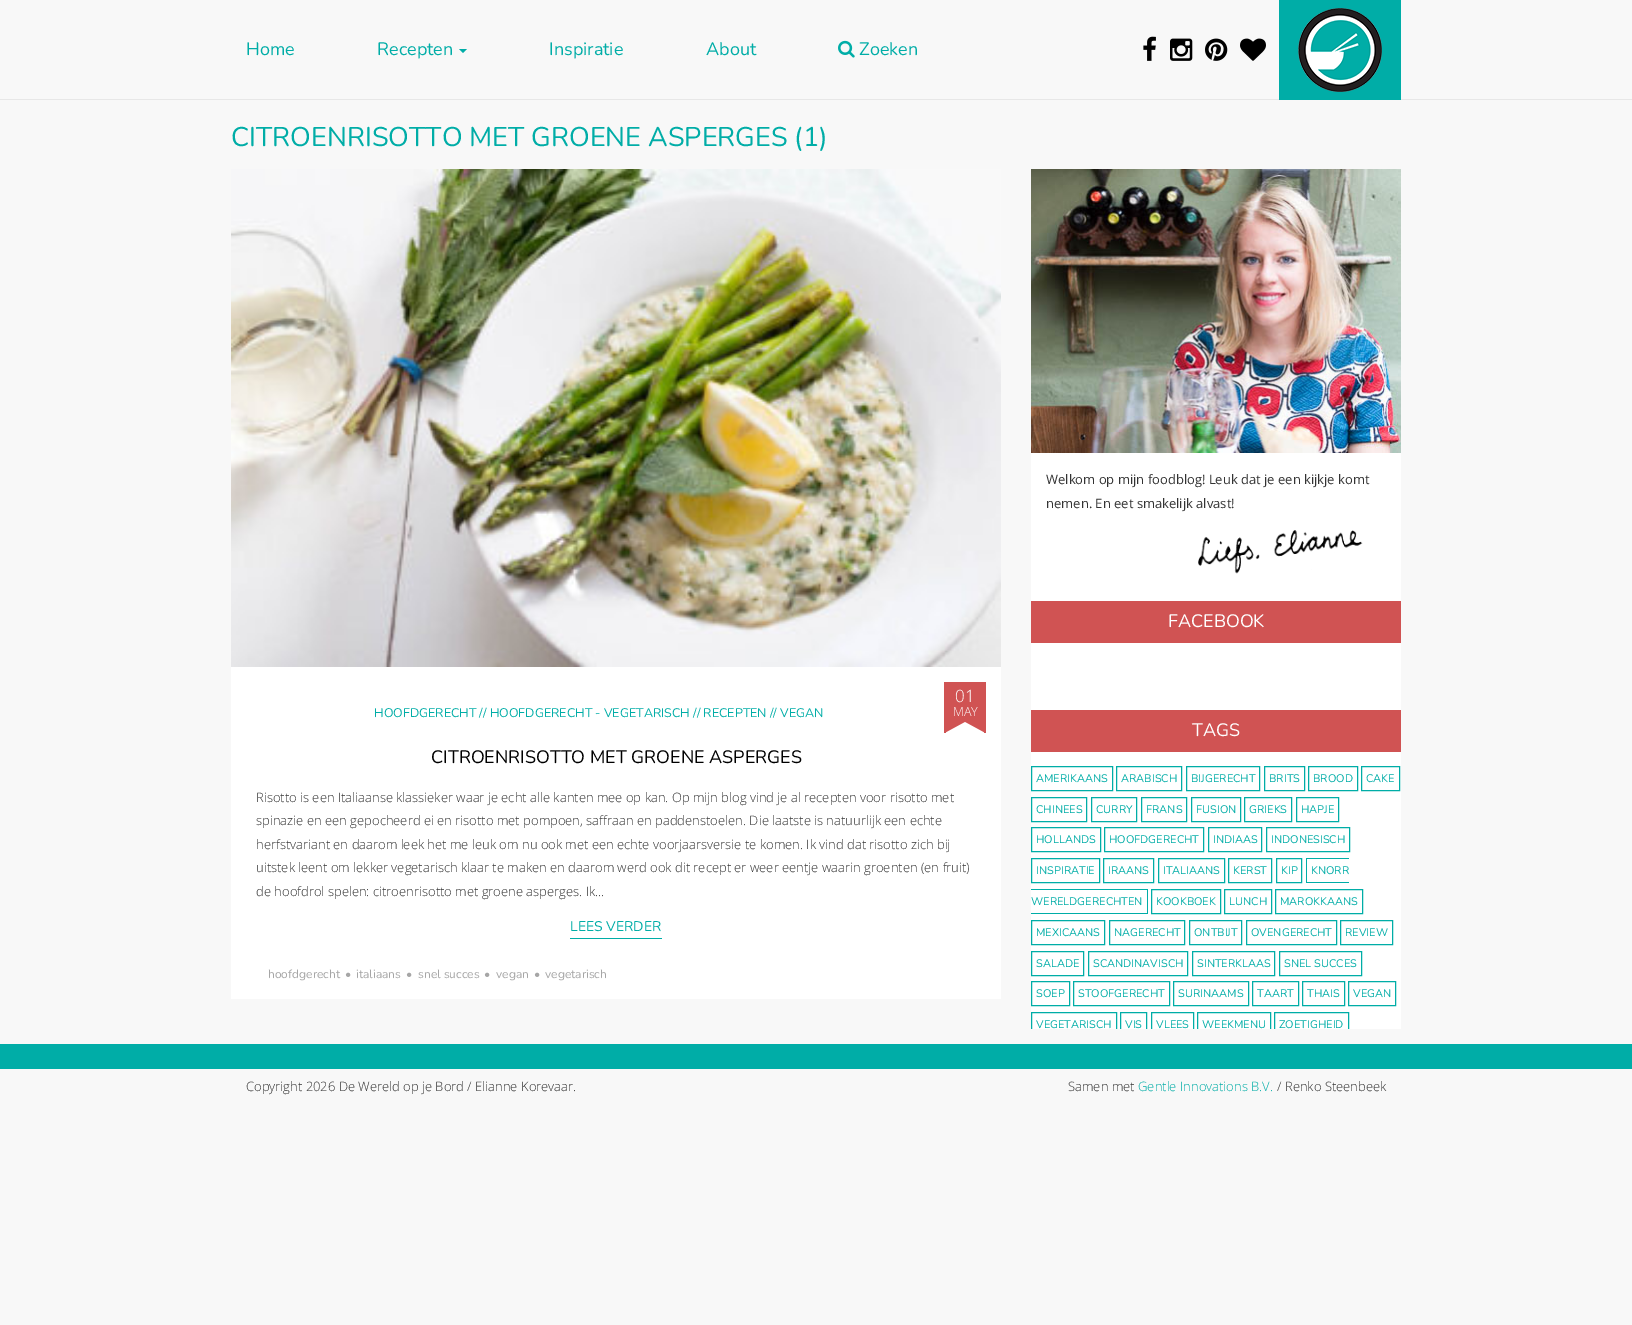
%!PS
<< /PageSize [1632 1325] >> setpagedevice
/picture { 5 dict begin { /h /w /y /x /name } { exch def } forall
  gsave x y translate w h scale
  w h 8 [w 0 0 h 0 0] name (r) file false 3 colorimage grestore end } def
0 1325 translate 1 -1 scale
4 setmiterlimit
0.973 setgray
0 0 1632 1325 rectfill
0.906 setgray
0 99 1632 1 rectfill
/Nunito-ExtraLight [18 0 0 -18 0 0] selectfont
0 0.678 0.655 setrgbcolor
246 55 moveto (Home) show
377 55 moveto (Recepten) show
newpath 459 49 moveto 467 49 lineto 463 53 lineto closepath fill
549 55 moveto (Inspiratie) show
706 55 moveto (About) show
(img1.rgb) 838 40 17 18 picture
859 55 moveto (Zoeken) show
(img2.rgb) 1143 36 13 25 picture
(img3.rgb) 1170 38 23 23 picture
(img4.rgb) 1205 38 23 23 picture
(img5.rgb) 1240 38 26 23 picture
1279 0 122 100 rectfill
(img6.rgb) 1298 8 84 84 picture
/Nunito-ExtraLight [27 0 0 -27 0 0] selectfont
231 146 moveto (CITROENRISOTTO MET GROENE ASPERGES \(1\)) show
1 setgray
231 667 770 332 rectfill
(img7.rgb) 231 169 770 498 picture
/Nunito-ExtraLight [12.5 0 0 -12.5 0 0] selectfont
0 0.678 0.655 setrgbcolor
374 717 moveto (HOOFDGERECHT // HOOFDGERECHT - VEGETARISCH // RECEPTEN // VEGAN) show
0.816 0.325 0.325 setrgbcolor
944 682 42 51 rectfill
/OpenSans-Light [17 0 0 -17 0 0] selectfont
1 setgray
955 702 moveto (01) show
(img8.rgb) 946 722 38 11 picture
/OpenSans-Light [12.5 0 0 -12.5 0 0] selectfont
953 716 moveto (MAY) show
/Nunito-ExtraLight [18 0 0 -18 0 0] selectfont
0 setgray
431 763 moveto (CITROENRISOTTO MET GROENE ASPERGES) show
/OpenSans-Light [13 0 0 -13 0 0] selectfont
0.2 setgray
256 802 moveto (Risotto is een Italiaanse klassieker waar je echt alle kanten mee op kan. Op mijn blog vind je al recepten voor risotto met) show
256 825 moveto (spinazie en een gepocheerd ei en risotto met pompoen, saffraan en paddenstoelen. Die laatste is natuurlijk een echte) show
256 849 moveto (herfstvariant en daarom leek het me leuk om nu ook met een echte voorjaarsversie te komen. Ik vind dat risotto zich bij) show
256 872 moveto (uitstek leent om lekker vegetarisch klaar te maken en daarom werd ook dit recept er weer eentje waarin groenten \(en fruit\)) show
256 896 moveto (de hoofdrol spelen: citroenrisotto met groene asperges. Ik...) show
/Nunito-ExtraLight [14 0 0 -14 0 0] selectfont
0 0.678 0.655 setrgbcolor
570 931 moveto (LEES VERDER) show
570 938 92 1 rectfill
/Nunito-ExtraLight [12 0 0 -12 0 0] selectfont
0.651 setgray
268 978 moveto (hoofdgerecht) show
345 978 moveto (•) show
356 978 moveto (italiaans) show
406 978 moveto (•) show
418 978 moveto (snel succes) show
484 978 moveto (•) show
496 978 moveto (vegan) show
534 978 moveto (•) show
545 978 moveto (vegetarisch) show
1 setgray
1031 453 370 576 rectfill
(img9.rgb) 1031 169 370 284 picture
/OpenSans-Regular [13 0 0 -13 0 0] selectfont
0.2 setgray
1046 484 moveto (Welkom op mijn foodblog! Leuk dat je een kijkje komt) show
1046 508 moveto (nemen. En eet smakelijk alvast!) show
(img10.rgb) 1198 530 165 44 picture
0.816 0.325 0.325 setrgbcolor
1031 601 370 42 rectfill
/Nunito-ExtraLight [18 0 0 -18 0 0] selectfont
1 setgray
1168 627 moveto (FACEBOOK) show
0.816 0.325 0.325 setrgbcolor
1031 710 370 42 rectfill
1 setgray
1192 736 moveto (TAGS) show
0 0.678 0.655 setrgbcolor
1031.5 766.5 81 24 rectstroke
/Nunito-ExtraLight [11 0 0 -11 0 0] selectfont
1036 782 moveto (AMERIKAANS) show
1116.5 766.5 65 24 rectstroke
1121 782 moveto (ARABISCH) show
1186.5 766.5 73 24 rectstroke
1191 782 moveto (BIJGERECHT) show
1264.5 766.5 40 24 rectstroke
1269 782 moveto (BRITS) show
1308.5 766.5 49 24 rectstroke
1313 782 moveto (BROOD) show
1361.5 766.5 38 24 rectstroke
1366 782 moveto (CAKE) show
1031.5 797.5 55 24 rectstroke
1036 813 moveto (CHINEES) show
1091.5 797.5 45 24 rectstroke
1096 813 moveto (CURRY) show
1141.5 797.5 45 24 rectstroke
1146 813 moveto (FRANS) show
1191.5 797.5 49 24 rectstroke
1196 813 moveto (FUSION) show
1244.5 797.5 47 24 rectstroke
1249 813 moveto (GRIEKS) show
1296.5 797.5 42 24 rectstroke
1301 813 moveto (HAPJE) show
1031.5 827.5 69 24 rectstroke
1036 843 moveto (HOLLANDS) show
1104.5 827.5 99 24 rectstroke
1109 843 moveto (HOOFDGERECHT) show
1208.5 827.5 53 24 rectstroke
1213 843 moveto (INDIAAS) show
1266.5 827.5 83 24 rectstroke
1271 843 moveto (INDONESISCH) show
1031.5 858.5 68 24 rectstroke
1036 874 moveto (INSPIRATIE) show
1103.5 858.5 50 24 rectstroke
1108 874 moveto (IRAANS) show
1158.5 858.5 66 24 rectstroke
1163 874 moveto (ITALIAANS) show
1228.5 858.5 43 24 rectstroke
1233 874 moveto (KERST) show
1276.5 858.5 25 24 rectstroke
1281 874 moveto (KIP) show
1311 874 moveto (KNORR) show
1306 858 43 1 rectfill
1306 882 43 1 rectfill
1306 858 1 25 rectfill
1031 905 moveto (WERELDGERECHTEN) show
1031 889 117 1 rectfill
1147 889 1 25 rectfill
1031 913 117 1 rectfill
1151.5 889.5 69 24 rectstroke
1156 905 moveto (KOOKBOEK) show
1224.5 889.5 47 24 rectstroke
1229 905 moveto (LUNCH) show
1275.5 889.5 87 24 rectstroke
1280 905 moveto (MAROKKAANS) show
1031.5 920.5 73 24 rectstroke
1036 936 moveto (MEXICAANS) show
1109.5 920.5 75 24 rectstroke
1114 936 moveto (NAGERECHT) show
1189.5 920.5 52 24 rectstroke
1194 936 moveto (ONTBIJT) show
1246.5 920.5 90 24 rectstroke
1251 936 moveto (OVENGERECHT) show
1340.5 920.5 52 24 rectstroke
1345 936 moveto (REVIEW) show
1031.5 951.5 52 24 rectstroke
1036 967 moveto (SALADE) show
1088.5 951.5 99 24 rectstroke
1093 967 moveto (SCANDINAVISCH) show
1192.5 951.5 82 24 rectstroke
1197 967 moveto (SINTERKLAAS) show
1279.5 951.5 82 24 rectstroke
1284 967 moveto (SNEL SUCCES) show
1031.5 981.5 38 24 rectstroke
1036 997 moveto (SOEP) show
1073.5 981.5 96 24 rectstroke
1078 997 moveto (STOOFGERECHT) show
1173.5 981.5 75 24 rectstroke
1178 997 moveto (SURINAAMS) show
1252.5 981.5 46 24 rectstroke
1257 997 moveto (TAART) show
1302.5 981.5 42 24 rectstroke
1307 997 moveto (THAIS) show
1348.5 981.5 47 24 rectstroke
1353 997 moveto (VEGAN) show
gsave
231 100 1170 929 rectclip
1031.5 1012.5 85 24 rectstroke
grestore
1036 1028 moveto (VEGETARISCH) show
gsave
231 100 1170 929 rectclip
1120.5 1012.5 26 24 rectstroke
grestore
1125 1028 moveto (VIS) show
gsave
231 100 1170 929 rectclip
1151.5 1012.5 42 24 rectstroke
grestore
1156 1028 moveto (VLEES) show
gsave
231 100 1170 929 rectclip
1197.5 1012.5 73 24 rectstroke
grestore
1202 1028 moveto (WEEKMENU) show
gsave
231 100 1170 929 rectclip
1274.5 1012.5 74 24 rectstroke
grestore
1279 1028 moveto (ZOETIGHEID) show
0 1044 1632 25 rectfill
/OpenSans-Light [13 0 0 -13 0 0] selectfont
0.2 setgray
246 1091 moveto (Copyright 2026 De Wereld op je Bord / Elianne Korevaar.) show
1068 1091 moveto (Samen met) show
0 0.678 0.655 setrgbcolor
1138 1091 moveto (Gentle Innovations B.V.) show
0.2 setgray
1277 1091 moveto (/ Renko Steenbeek) show
showpage
